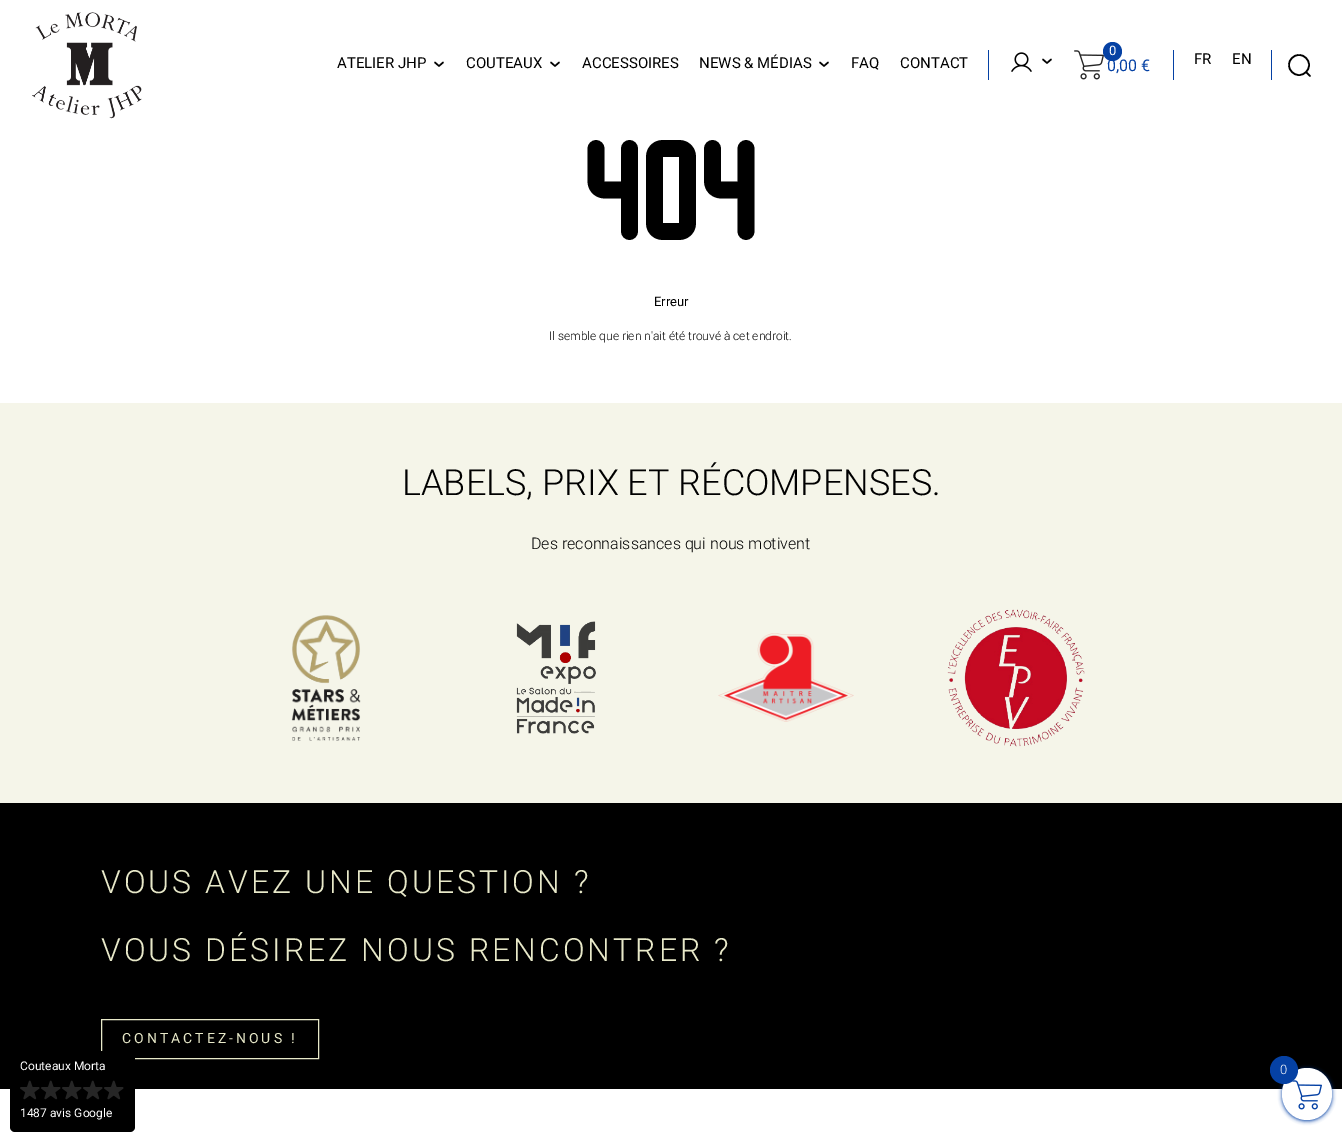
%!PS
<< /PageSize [1342 1142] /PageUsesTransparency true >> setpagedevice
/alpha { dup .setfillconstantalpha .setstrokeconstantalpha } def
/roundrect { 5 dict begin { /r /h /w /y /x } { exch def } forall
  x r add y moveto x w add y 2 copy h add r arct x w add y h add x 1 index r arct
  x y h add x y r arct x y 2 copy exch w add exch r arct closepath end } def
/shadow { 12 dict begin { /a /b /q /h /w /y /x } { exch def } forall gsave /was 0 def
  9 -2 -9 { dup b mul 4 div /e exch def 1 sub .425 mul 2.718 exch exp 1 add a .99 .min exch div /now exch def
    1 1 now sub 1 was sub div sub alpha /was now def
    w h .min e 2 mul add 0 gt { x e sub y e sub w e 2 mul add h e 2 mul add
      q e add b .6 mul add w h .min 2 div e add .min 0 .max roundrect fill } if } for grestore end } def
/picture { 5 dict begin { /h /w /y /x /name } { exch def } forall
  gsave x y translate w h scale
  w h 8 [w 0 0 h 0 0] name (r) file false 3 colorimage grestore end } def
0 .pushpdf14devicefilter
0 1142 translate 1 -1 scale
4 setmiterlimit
1 setgray
0 0 1342 1142 rectfill
(img1.rgb) 32 12 110 107 picture
0.02 0.255 0.643 setrgbcolor
1271 50 1 30 rectfill
/Roboto-Regular [15 0 0 -15 0 0] selectfont
0 setgray
337 68 moveto (ATELIER JHP) show
1.5 setlinewidth
1 setlinecap
1 setlinejoin
newpath 443 62.5 moveto 439 66 lineto 435 62.5 lineto stroke
466 68 moveto (COUTEAUX) show
newpath 559 62.5 moveto 555 66 lineto 551 62.5 lineto stroke
582 68 moveto (ACCESSOIRES) show
699 68 moveto (NEWS & MÉDIAS) show
newpath 828 62.5 moveto 824 66 lineto 820 62.5 lineto stroke
851 68 moveto (FAQ) show
0.02 0.255 0.643 setrgbcolor
988 50 1 30 rectfill
0 setgray
900 68 moveto (CONTACT) show
(img2.rgb) 1011 52 21 20 picture
newpath 1051 59.5 moveto 1047 63 lineto 1043 59.5 lineto stroke
0.02 0.255 0.643 setrgbcolor
1173 50 1 30 rectfill
(img3.rgb) 1074 50 30 30 picture
newpath 1112.5 51.5 9.5 0 360 arc closepath fill
/Roboto-Regular [13 0 0 -13 0 0] selectfont
1 setgray
1109 55 moveto (0) show
/Roboto-Regular [16 0 0 -16 0 0] selectfont
0.02 0.255 0.643 setrgbcolor
1107 71 moveto (0,00 €) show
/Roboto-Regular [15 0 0 -15 0 0] selectfont
0 setgray
1194 64 moveto (FR) show
1232 64 moveto (EN) show
1.6 setlinewidth
0 setlinecap
0 setlinejoin
newpath 1299 65 10 0 360 arc closepath stroke
1 setlinecap
newpath 1306.5 72.5 moveto 1310 76 lineto stroke
16.7 setlinewidth
1 setlinejoin
newpath 596 148.5 moveto 596 181.5 lineto 596 186.5 599.5 190 604.5 190 curveto 629.5 190 lineto 629.5 148.5 moveto 629.5 231.5 lineto 654.5 156.5 moveto 654.5 223.5 lineto 654.5 228 658 231.5 662.5 231.5 curveto 679.5 231.5 lineto 684 231.5 687.5 228 687.5 223.5 curveto 687.5 156.5 lineto 687.5 152 684 148.5 679.5 148.5 curveto 662.5 148.5 lineto 658 148.5 654.5 152 654.5 156.5 curveto closepath 712.5 148.5 moveto 712.5 181.5 lineto 712.5 186.5 716.5 190 721 190 curveto 746 190 lineto 746 148.5 moveto 746 231.5 lineto stroke
/Roboto-Regular [13 0 0 -13 0 0] selectfont
654 306 moveto (Erreur) show
/Roboto-Light [12 0 0 -12 0 0] selectfont
549 340 moveto (Il semble que rien n'ait été trouvé à cet endroit.) show
0.961 0.961 0.914 setrgbcolor
0 403 1342 400 rectfill
/Roboto-Light [36 0 0 -36 0 0] selectfont
0 setgray
402 495 moveto (LABELS, PRIX ET RÉCOMPENSES.) show
/Roboto-Light [16 0 0 -16 0 0] selectfont
531 549 moveto (Des reconnaissances qui nous motivent) show
(img4.rgb) 291 615 70 126 picture
(img5.rgb) 516 621 80 113 picture
(img6.rgb) 718 633 136 89 picture
(img7.rgb) 947 609 138 138 picture
0 803 1342 286 rectfill
/Roboto-Light [32 0 0 -32 0 0] selectfont
0.91 0.914 0.788 setrgbcolor
101 893 moveto 3 0 (VOUS AVEZ UNE QUESTION ?) ashow
101 961 moveto 3 0 (VOUS DÉSIREZ NOUS RENCONTRER ?) ashow
1 setlinewidth
0 setlinecap
0 setlinejoin
101.5 1019.5 217 39 rectstroke
/Roboto-Regular [14 0 0 -14 0 0] selectfont
122 1043 moveto 3 0 (CONTACTEZ-NOUS !) ashow
0 setgray
10 1051 125 81 5 roundrect fill
/Roboto-Regular [12 0 0 -12 0 0] selectfont
1 setgray
20 1070 moveto (Couteaux Morta) show
(img8.rgb) 20 1080 20 20 picture
(img8.rgb) 41 1080 20 20 picture
(img8.rgb) 62 1080 20 20 picture
(img8.rgb) 83 1080 20 20 picture
(img8.rgb) 104 1080 20 20 picture
20 1117 moveto (1487 avis Google) show
0.02 0.255 0.643 setrgbcolor
1282 1069 50 52 25 2 1 shadow
1 setgray
newpath 1307 1068 moveto 1321 1068 1332 1079.5 1332 1094 curveto 1332 1108.5 1321 1120 1307 1120 curveto 1293 1120 1282 1108.5 1282 1094 curveto 1282 1079.5 1293 1068 1307 1068 curveto closepath fill
0.02 0.255 0.643 setrgbcolor
newpath 1284 1070 14 0 360 arc closepath fill
/Roboto-Light [13 0 0 -13 0 0] selectfont
1 setgray
1280 1074 moveto (0) show
(img9.rgb) 1292 1080 30 30 picture
.poppdf14devicefilter showpage
